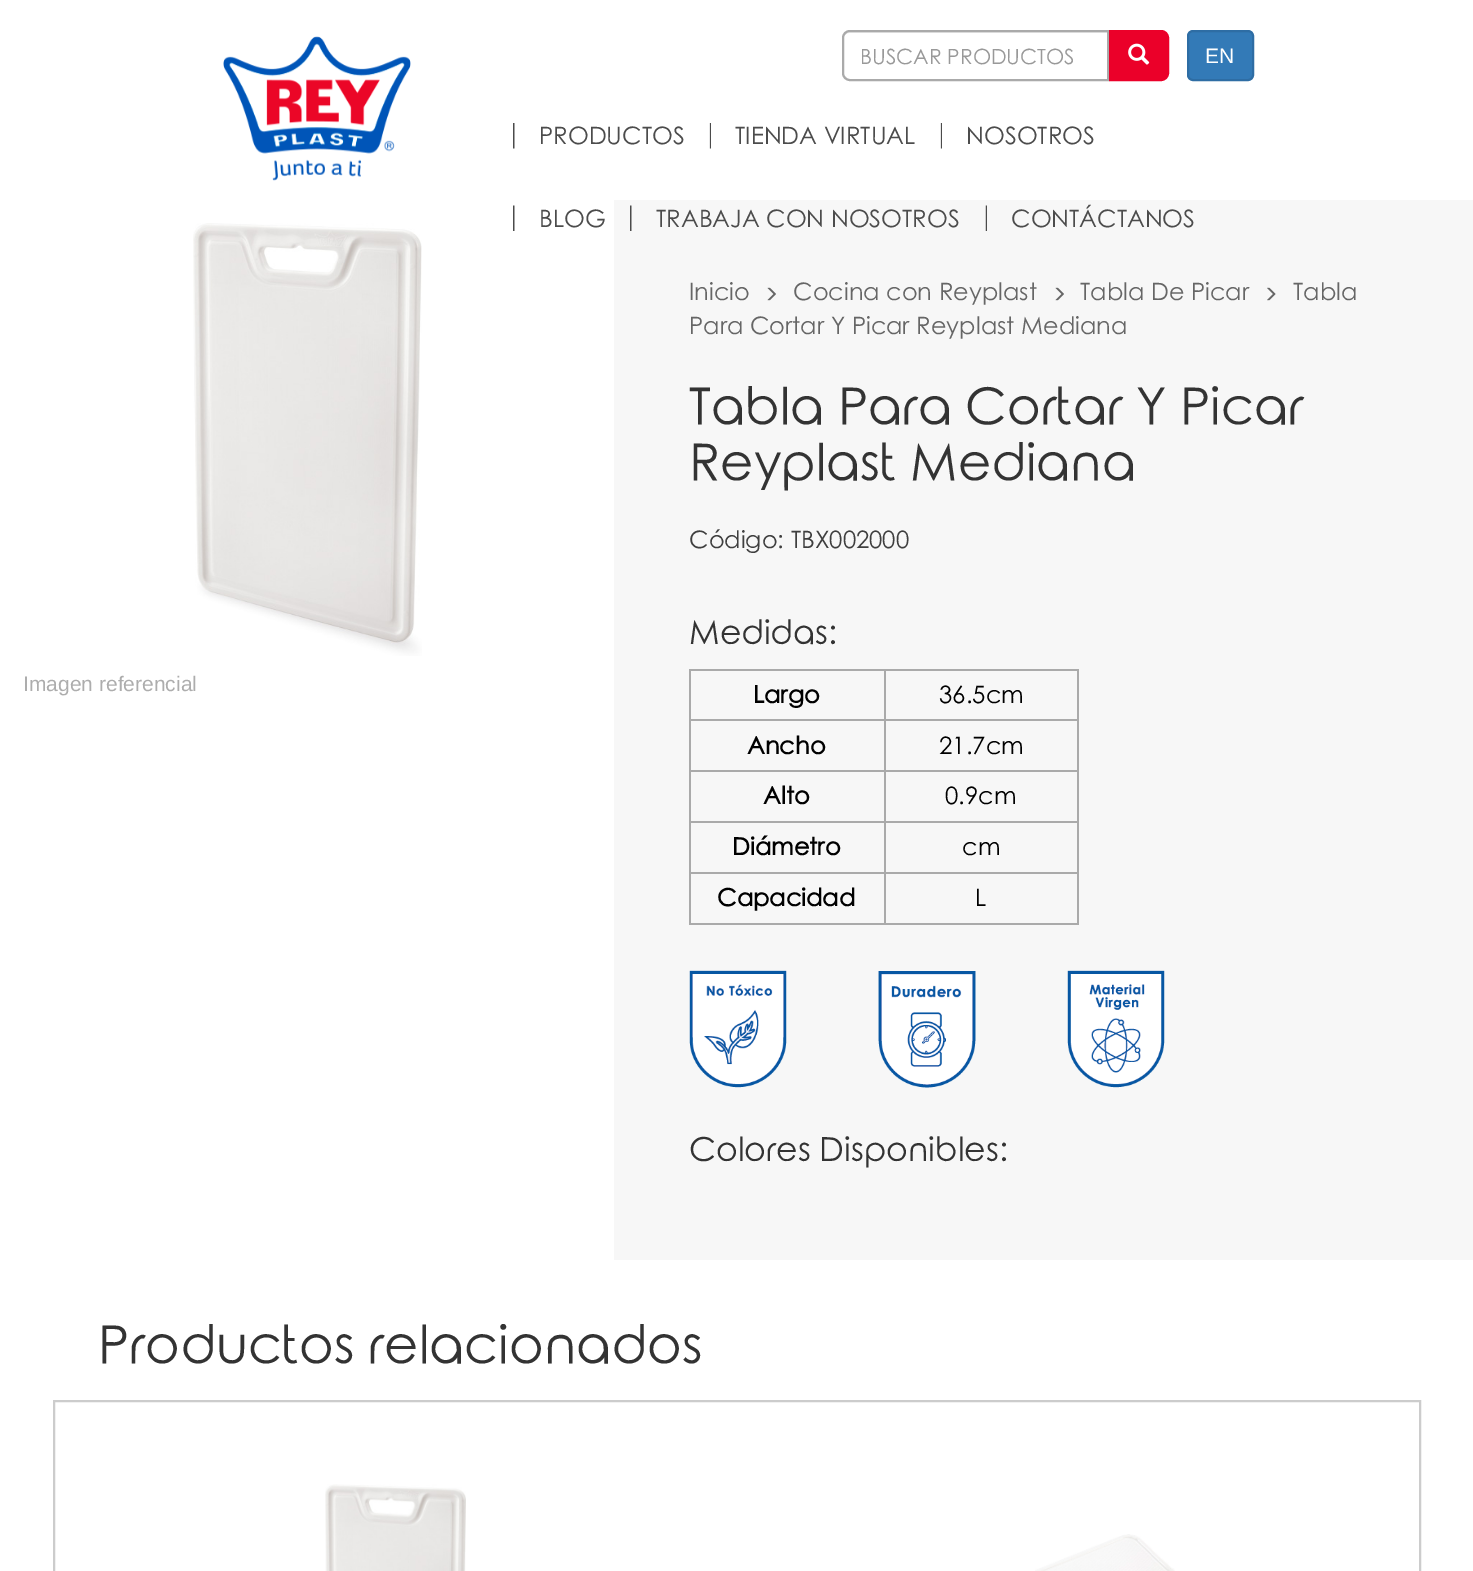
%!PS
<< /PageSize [1473 1571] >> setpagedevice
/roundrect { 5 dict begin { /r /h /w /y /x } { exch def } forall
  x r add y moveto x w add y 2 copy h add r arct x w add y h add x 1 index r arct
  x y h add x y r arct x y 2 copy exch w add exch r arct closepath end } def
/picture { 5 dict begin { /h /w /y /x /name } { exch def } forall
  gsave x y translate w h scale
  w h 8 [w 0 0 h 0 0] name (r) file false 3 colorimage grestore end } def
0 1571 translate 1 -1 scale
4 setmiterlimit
1 setgray
0 0 1473 1571 rectfill
(img1.rgb) 223 36 188 145 picture
0.925 setgray
newpath 849 33 moveto 1107 33 lineto 1107 32 lineto 849 32 lineto 845 32 843 35 843 39 curveto 843 36 846 33 849 33 curveto closepath fill
0.667 setgray
2 setlinewidth
newpath 850 31 moveto 1108 31 lineto 1108 80 lineto 850 80 lineto 846 80 843 77 843 73 curveto 843 38 lineto 843 34 846 31 850 31 curveto closepath stroke
/CenturyGothic-Regular [21 0 0 -21 0 0] selectfont
0.6 setgray
860 64 moveto (BUSCAR PRODUCTOS) show
0.922 0 0.161 setrgbcolor
newpath 1110 31 moveto 1161 31 lineto 1165 31 1168 34 1168 38 curveto 1168 73 lineto 1168 77 1165 80 1161 80 curveto 1110 80 lineto closepath gsave fill grestore
stroke
(img2.rgb) 1128 43 22 22 picture
0.2 0.478 0.718 setrgbcolor
1188 31 65 49 5 roundrect gsave fill grestore
0.18 0.427 0.643 setrgbcolor
stroke
/LiberationSans-Regular [21 0 0 -21 0 0] selectfont
1 setgray
1205 63 moveto (EN) show
(img3.rgb) 513 123 2 26 picture
/CenturyGothic-Regular [24 0 0 -24 0 0] selectfont
0.298 setgray
539 144 moveto (PRODUCTOS) show
(img4.rgb) 709 123 2 26 picture
735 144 moveto (TIENDA VIRTUAL) show
(img4.rgb) 940 123 2 26 picture
966 144 moveto (NOSOTROS) show
(img5.rgb) 513 205 2 26 picture
539 227 moveto (BLOG) show
0.969 setgray
614 200 859 1060 rectfill
(img6.rgb) 630 205 2 26 picture
0.298 setgray
656 227 moveto (TRABAJA CON NOSOTROS) show
(img7.rgb) 985 205 2 26 picture
1011 227 moveto (CONTÁCTANOS) show
(img8.rgb) 193 223 229 433 picture
/LiberationSans-Regular [21 0 0 -21 0 0] selectfont
0.678 setgray
23 691 moveto (Imagen referencial) show
/CenturyGothic-Regular [24 0 0 -24 0 0] selectfont
0.4 setgray
689 300 moveto (Inicio) show
(img9.rgb) 767 287 9 14 picture
793 300 moveto (Cocina con Reyplast) show
(img9.rgb) 1055 287 9 14 picture
1080 300 moveto (Tabla De Picar) show
(img10.rgb) 1267 287 9 14 picture
1293 300 moveto (Tabla) show
689 334 moveto (Para Cortar Y Picar Reyplast Mediana) show
/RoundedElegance-Regular [51 0 0 -51 0 0] selectfont
0.2 setgray
689 426 moveto (Tabla Para Cortar Y Picar) show
689 482 moveto (Reyplast Mediana) show
/CenturyGothic-Regular [24 0 0 -24 0 0] selectfont
0.247 setgray
689 548 moveto (Código: TBX002000) show
/RoundedElegance-Regular [33 0 0 -33 0 0] selectfont
0.2 setgray
689 645 moveto (Medidas:) show
0.667 setgray
689 669 390 2 rectfill
1077 669 2 255 rectfill
689 923 390 2 rectfill
689 669 2 255 rectfill
/CenturyGothic-Bold [24 0 0 -24 0 0] selectfont
0 setgray
753 703 moveto (Largo) show
0.667 setgray
884 719 195 2 rectfill
884 770 195 2 rectfill
884 821 195 2 rectfill
884 872 195 2 rectfill
884 872 2 52 rectfill
689 872 196 2 rectfill
884 821 2 52 rectfill
689 821 196 2 rectfill
884 770 2 52 rectfill
689 770 196 2 rectfill
884 719 2 52 rectfill
689 719 196 2 rectfill
884 669 2 51 rectfill
/CenturyGothic-Regular [24 0 0 -24 0 0] selectfont
0 setgray
939 703 moveto (36.5cm) show
/CenturyGothic-Bold [24 0 0 -24 0 0] selectfont
747 754 moveto (Ancho) show
/CenturyGothic-Regular [24 0 0 -24 0 0] selectfont
939 754 moveto (21.7cm) show
/CenturyGothic-Bold [24 0 0 -24 0 0] selectfont
763 804 moveto (Alto) show
/CenturyGothic-Regular [24 0 0 -24 0 0] selectfont
945 804 moveto (0.9cm) show
/CenturyGothic-Bold [24 0 0 -24 0 0] selectfont
732 855 moveto (Diámetro) show
/CenturyGothic-Regular [24 0 0 -24 0 0] selectfont
962 855 moveto (cm) show
/CenturyGothic-Bold [24 0 0 -24 0 0] selectfont
717 906 moveto (Capacidad) show
/CenturyGothic-Regular [24 0 0 -24 0 0] selectfont
975 906 moveto (L) show
(img11.rgb) 689 970 98 118 picture
(img12.rgb) 878 971 98 117 picture
(img13.rgb) 1067 970 98 118 picture
/RoundedElegance-Regular [33 0 0 -33 0 0] selectfont
0.2 setgray
689 1162 moveto (Colores Disponibles:) show
/RoundedElegance-Regular [52.5 0 0 -52.5 0 0] selectfont
98 1365 moveto (Productos relacionados) show
0.8 setgray
54 1401 1366 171 rectstroke
(img14.rgb) 325 1484 141 87 picture
(img15.rgb) 1035 1534 140 37 picture
showpage
